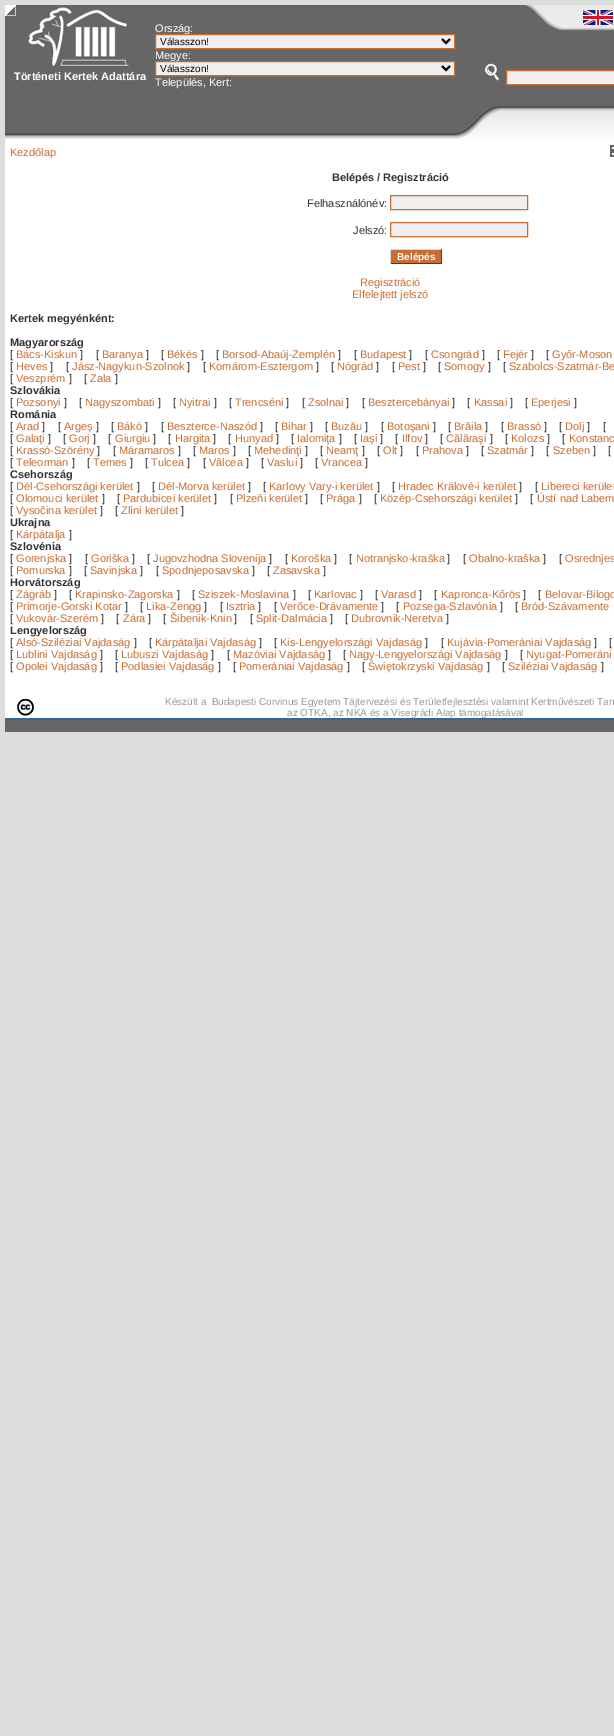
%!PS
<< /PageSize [614 1736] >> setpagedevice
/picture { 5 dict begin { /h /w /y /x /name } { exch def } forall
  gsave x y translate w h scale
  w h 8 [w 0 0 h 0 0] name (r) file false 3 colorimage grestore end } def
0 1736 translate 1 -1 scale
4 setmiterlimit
0.867 setgray
0 0 614 1736 rectfill
(img1.rgb) 5 5 609 135 picture
(img2.rgb) 583 10 30 15 picture
(img3.rgb) 28 6 101 61 picture
/LiberationSans-Bold [11 0 0 -11 0 0] selectfont
1 setgray
14 80 moveto (Történeti Kertek Adattára) show
/LiberationSans-Regular [11 0 0 -11 0 0] selectfont
155 32 moveto (Ország:) show
0.941 setgray
newpath 155.5 34.5 moveto 454.5 34.5 lineto 454.5 48.5 lineto 155.5 48.5 lineto closepath gsave fill grestore
0.784 0.431 0.196 setrgbcolor
stroke
0 setgray
2 setlinewidth
newpath 442 39 moveto 446 43 lineto 450 39 lineto stroke
/LiberationSans-Regular [10 0 0 -10 0 0] selectfont
160 45 moveto (Válasszon!) show
/LiberationSans-Regular [11 0 0 -11 0 0] selectfont
1 setgray
155 59 moveto (Megye:) show
0.941 setgray
newpath 155.5 61.5 moveto 454.5 61.5 lineto 454.5 75.5 lineto 155.5 75.5 lineto closepath gsave fill grestore
0.784 0.431 0.196 setrgbcolor
1 setlinewidth
stroke
0 setgray
2 setlinewidth
newpath 442 66 moveto 446 70 lineto 450 66 lineto stroke
/LiberationSans-Regular [10 0 0 -10 0 0] selectfont
160 72 moveto (Válasszon!) show
/LiberationSans-Regular [11 0 0 -11 0 0] selectfont
1 setgray
155 86 moveto (Település, Kert:) show
(img4.rgb) 485 63 14 18 picture
0.941 setgray
newpath 506.5 70.5 moveto 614.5 70.5 lineto 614.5 84.5 lineto 506.5 84.5 lineto closepath gsave fill grestore
0.784 0.431 0.196 setrgbcolor
1 setlinewidth
stroke
1 setgray
5 140 609 578 rectfill
0.784 0.431 0.196 setrgbcolor
10 156 moveto (Kezdőlap) show
(img5.rgb) 610 145 4 12 picture
/LiberationSans-Bold [11 0 0 -11 0 0] selectfont
0.2 setgray
332 181 moveto (Belépés / Regisztráció) show
/LiberationSans-Regular [11 0 0 -11 0 0] selectfont
307 207 moveto (Felhasználónév:) show
0.941 setgray
newpath 390.5 195.5 moveto 527.5 195.5 lineto 527.5 209.5 lineto 390.5 209.5 lineto closepath gsave fill grestore
0.784 0.431 0.196 setrgbcolor
stroke
0.2 setgray
353 234 moveto (Jelszó:) show
0.941 setgray
newpath 390.5 222.5 moveto 527.5 222.5 lineto 527.5 236.5 lineto 390.5 236.5 lineto closepath gsave fill grestore
0.784 0.431 0.196 setrgbcolor
stroke
391 250 50 13 rectfill
0.867 0.859 0.82 setrgbcolor
390 249 52 1 rectfill
0.224 0.255 0.29 setrgbcolor
441 249 1 15 rectfill
390 263 52 1 rectfill
0.867 0.859 0.82 setrgbcolor
390 249 1 15 rectfill
/LiberationSans-Bold [10 0 0 -10 0 0] selectfont
1 setgray
397 260 moveto (Belépés) show
/LiberationSans-Regular [11 0 0 -11 0 0] selectfont
0.784 0.431 0.196 setrgbcolor
360 286 moveto (Regisztráció) show
352 298 moveto (Elfelejtett jelszó) show
/LiberationSans-Bold [11 0 0 -11 0 0] selectfont
0.2 setgray
10 322 moveto (Kertek megyénként:) show
10 346 moveto (Magyarország) show
/LiberationSans-Regular [11 0 0 -11 0 0] selectfont
10 358 moveto ([) show
0.784 0.431 0.196 setrgbcolor
16 358 moveto (Bács-Kiskun) show
0.2 setgray
80 358 moveto (]) show
96 358 moveto ([) show
0.784 0.431 0.196 setrgbcolor
102 358 moveto (Baranya) show
0.2 setgray
146 358 moveto (]) show
161 358 moveto ([) show
0.784 0.431 0.196 setrgbcolor
167 358 moveto (Békés) show
0.2 setgray
201 358 moveto (]) show
216 358 moveto ([) show
0.784 0.431 0.196 setrgbcolor
222 358 moveto (Borsod-Abaúj-Zemplén) show
0.2 setgray
338 358 moveto (]) show
354 358 moveto ([) show
0.784 0.431 0.196 setrgbcolor
360 358 moveto (Budapest) show
0.2 setgray
409 358 moveto (]) show
425 358 moveto ([) show
0.784 0.431 0.196 setrgbcolor
431 358 moveto (Csongrád) show
0.2 setgray
482 358 moveto (]) show
497 358 moveto ([) show
0.784 0.431 0.196 setrgbcolor
503 358 moveto (Fejér) show
0.2 setgray
531 358 moveto (]) show
546 358 moveto ([) show
0.784 0.431 0.196 setrgbcolor
552 358 moveto (Győr-Moson) show
0.2 setgray
10 370 moveto ([) show
0.784 0.431 0.196 setrgbcolor
16 370 moveto (Heves) show
0.2 setgray
50 370 moveto (]) show
66 370 moveto ([) show
0.784 0.431 0.196 setrgbcolor
72 370 moveto (Jász-Nagykun-Szolnok) show
0.2 setgray
187 370 moveto (]) show
203 370 moveto ([) show
0.784 0.431 0.196 setrgbcolor
209 370 moveto (Komárom-Esztergom) show
0.2 setgray
316 370 moveto (]) show
331 370 moveto ([) show
0.784 0.431 0.196 setrgbcolor
337 370 moveto (Nógrád) show
0.2 setgray
376 370 moveto (]) show
392 370 moveto ([) show
0.784 0.431 0.196 setrgbcolor
398 370 moveto (Pest) show
0.2 setgray
423 370 moveto (]) show
438 370 moveto ([) show
0.784 0.431 0.196 setrgbcolor
444 370 moveto (Somogy) show
0.2 setgray
488 370 moveto (]) show
503 370 moveto ([) show
0.784 0.431 0.196 setrgbcolor
509 370 moveto (Szabolcs-Szatmár-Be) show
0.2 setgray
10 382 moveto ([) show
0.784 0.431 0.196 setrgbcolor
16 382 moveto (Veszprém) show
0.2 setgray
69 382 moveto (]) show
84 382 moveto ([) show
0.784 0.431 0.196 setrgbcolor
90 382 moveto (Zala) show
0.2 setgray
115 382 moveto (]) show
/LiberationSans-Bold [11 0 0 -11 0 0] selectfont
10 394 moveto (Szlovákia) show
/LiberationSans-Regular [11 0 0 -11 0 0] selectfont
10 406 moveto ([) show
0.784 0.431 0.196 setrgbcolor
16 406 moveto (Pozsonyi) show
0.2 setgray
64 406 moveto (]) show
79 406 moveto ([) show
0.784 0.431 0.196 setrgbcolor
85 406 moveto (Nagyszombati) show
0.2 setgray
158 406 moveto (]) show
173 406 moveto ([) show
0.784 0.431 0.196 setrgbcolor
179 406 moveto (Nyitrai) show
0.2 setgray
214 406 moveto (]) show
229 406 moveto ([) show
0.784 0.431 0.196 setrgbcolor
235 406 moveto (Trencséni) show
0.2 setgray
286 406 moveto (]) show
302 406 moveto ([) show
0.784 0.431 0.196 setrgbcolor
308 406 moveto (Zsolnai) show
0.2 setgray
346 406 moveto (]) show
362 406 moveto ([) show
0.784 0.431 0.196 setrgbcolor
368 406 moveto (Besztercebányai) show
0.2 setgray
452 406 moveto (]) show
467 406 moveto ([) show
0.784 0.431 0.196 setrgbcolor
474 406 moveto (Kassai) show
0.2 setgray
510 406 moveto (]) show
525 406 moveto ([) show
0.784 0.431 0.196 setrgbcolor
531 406 moveto (Eperjesi) show
0.2 setgray
574 406 moveto (]) show
/LiberationSans-Bold [11 0 0 -11 0 0] selectfont
10 418 moveto (Románia) show
/LiberationSans-Regular [11 0 0 -11 0 0] selectfont
10 430 moveto ([) show
0.784 0.431 0.196 setrgbcolor
16 430 moveto (Arad) show
0.2 setgray
42 430 moveto (]) show
58 430 moveto ([) show
0.784 0.431 0.196 setrgbcolor
64 430 moveto (Argeş) show
0.2 setgray
96 430 moveto (]) show
111 430 moveto ([) show
0.784 0.431 0.196 setrgbcolor
117 430 moveto (Bákó) show
0.2 setgray
145 430 moveto (]) show
161 430 moveto ([) show
0.784 0.431 0.196 setrgbcolor
167 430 moveto (Beszterce-Naszód) show
0.2 setgray
260 430 moveto (]) show
275 430 moveto ([) show
0.784 0.431 0.196 setrgbcolor
281 430 moveto (Bihar) show
0.2 setgray
310 430 moveto (]) show
325 430 moveto ([) show
0.784 0.431 0.196 setrgbcolor
331 430 moveto (Buzău) show
0.2 setgray
365 430 moveto (]) show
381 430 moveto ([) show
0.784 0.431 0.196 setrgbcolor
387 430 moveto (Botoşani) show
0.2 setgray
433 430 moveto (]) show
448 430 moveto ([) show
0.784 0.431 0.196 setrgbcolor
454 430 moveto (Brăila) show
0.2 setgray
485 430 moveto (]) show
501 430 moveto ([) show
0.784 0.431 0.196 setrgbcolor
507 430 moveto (Brassó) show
0.2 setgray
544 430 moveto (]) show
559 430 moveto ([) show
0.784 0.431 0.196 setrgbcolor
565 430 moveto (Dolj) show
0.2 setgray
587 430 moveto (]) show
603 430 moveto ([) show
10 442 moveto ([) show
0.784 0.431 0.196 setrgbcolor
16 442 moveto (Galaţi) show
0.2 setgray
48 442 moveto (]) show
63 442 moveto ([) show
0.784 0.431 0.196 setrgbcolor
69 442 moveto (Gorj) show
0.2 setgray
93 442 moveto (]) show
108 442 moveto ([) show
0.784 0.431 0.196 setrgbcolor
115 442 moveto (Giurgiu) show
0.2 setgray
153 442 moveto (]) show
168 442 moveto ([) show
0.784 0.431 0.196 setrgbcolor
175 442 moveto (Hargita) show
0.2 setgray
213 442 moveto (]) show
228 442 moveto ([) show
0.784 0.431 0.196 setrgbcolor
235 442 moveto (Hunyad) show
0.2 setgray
276 442 moveto (]) show
291 442 moveto ([) show
0.784 0.431 0.196 setrgbcolor
297 442 moveto (Ialomiţa) show
0.2 setgray
339 442 moveto (]) show
354 442 moveto ([) show
0.784 0.431 0.196 setrgbcolor
360 442 moveto (Iaşi) show
0.2 setgray
380 442 moveto (]) show
395 442 moveto ([) show
0.784 0.431 0.196 setrgbcolor
402 442 moveto (Ilfov) show
0.2 setgray
425 442 moveto (]) show
440 442 moveto ([) show
0.784 0.431 0.196 setrgbcolor
446 442 moveto (Călăraşi) show
0.2 setgray
490 442 moveto (]) show
505 442 moveto ([) show
0.784 0.431 0.196 setrgbcolor
511 442 moveto (Kolozs) show
0.2 setgray
547 442 moveto (]) show
562 442 moveto ([) show
0.784 0.431 0.196 setrgbcolor
569 442 moveto (Konstanc) show
0.2 setgray
10 454 moveto ([) show
0.784 0.431 0.196 setrgbcolor
16 454 moveto (Krassó-Szörény) show
0.2 setgray
97 454 moveto (]) show
113 454 moveto ([) show
0.784 0.431 0.196 setrgbcolor
119 454 moveto (Máramaros) show
0.2 setgray
178 454 moveto (]) show
193 454 moveto ([) show
0.784 0.431 0.196 setrgbcolor
199 454 moveto (Maros) show
0.2 setgray
233 454 moveto (]) show
248 454 moveto ([) show
0.784 0.431 0.196 setrgbcolor
254 454 moveto (Mehedinţi) show
0.2 setgray
305 454 moveto (]) show
320 454 moveto ([) show
0.784 0.431 0.196 setrgbcolor
326 454 moveto (Neamţ) show
0.2 setgray
362 454 moveto (]) show
377 454 moveto ([) show
0.784 0.431 0.196 setrgbcolor
383 454 moveto (Olt) show
0.2 setgray
400 454 moveto (]) show
416 454 moveto ([) show
0.784 0.431 0.196 setrgbcolor
422 454 moveto (Prahova) show
0.2 setgray
466 454 moveto (]) show
481 454 moveto ([) show
0.784 0.431 0.196 setrgbcolor
487 454 moveto (Szatmár) show
0.2 setgray
531 454 moveto (]) show
546 454 moveto ([) show
0.784 0.431 0.196 setrgbcolor
553 454 moveto (Szeben) show
0.2 setgray
593 454 moveto (]) show
608 454 moveto ([) show
10 466 moveto ([) show
0.784 0.431 0.196 setrgbcolor
16 466 moveto (Teleorman) show
0.2 setgray
72 466 moveto (]) show
87 466 moveto ([) show
0.784 0.431 0.196 setrgbcolor
93 466 moveto (Temes) show
0.2 setgray
130 466 moveto (]) show
145 466 moveto ([) show
0.784 0.431 0.196 setrgbcolor
151 466 moveto (Tulcea) show
0.2 setgray
187 466 moveto (]) show
203 466 moveto ([) show
0.784 0.431 0.196 setrgbcolor
209 466 moveto (Vâlcea) show
0.2 setgray
246 466 moveto (]) show
261 466 moveto ([) show
0.784 0.431 0.196 setrgbcolor
267 466 moveto (Vaslui) show
0.2 setgray
300 466 moveto (]) show
315 466 moveto ([) show
0.784 0.431 0.196 setrgbcolor
321 466 moveto (Vrancea) show
0.2 setgray
365 466 moveto (]) show
/LiberationSans-Bold [11 0 0 -11 0 0] selectfont
10 478 moveto (Csehország) show
/LiberationSans-Regular [11 0 0 -11 0 0] selectfont
10 490 moveto ([) show
0.784 0.431 0.196 setrgbcolor
16 490 moveto (Dél-Csehországi kerület) show
0.2 setgray
137 490 moveto (]) show
152 490 moveto ([) show
0.784 0.431 0.196 setrgbcolor
158 490 moveto (Dél-Morva kerület) show
0.2 setgray
248 490 moveto (]) show
263 490 moveto ([) show
0.784 0.431 0.196 setrgbcolor
269 490 moveto (Karlovy Vary-i kerület) show
0.2 setgray
377 490 moveto (]) show
392 490 moveto ([) show
0.784 0.431 0.196 setrgbcolor
398 490 moveto (Hradec Králové-i kerület) show
0.2 setgray
519 490 moveto (]) show
535 490 moveto ([) show
0.784 0.431 0.196 setrgbcolor
541 490 moveto (Libereci kerület) show
0.2 setgray
10 502 moveto ([) show
0.784 0.431 0.196 setrgbcolor
16 502 moveto (Olomouci kerület) show
0.2 setgray
102 502 moveto (]) show
117 502 moveto ([) show
0.784 0.431 0.196 setrgbcolor
123 502 moveto (Pardubicei kerület) show
0.2 setgray
214 502 moveto (]) show
230 502 moveto ([) show
0.784 0.431 0.196 setrgbcolor
236 502 moveto (Plzeňi kerület) show
0.2 setgray
305 502 moveto (]) show
320 502 moveto ([) show
0.784 0.431 0.196 setrgbcolor
326 502 moveto (Prága) show
0.2 setgray
359 502 moveto (]) show
374 502 moveto ([) show
0.784 0.431 0.196 setrgbcolor
380 502 moveto (Közép-Csehországi kerület) show
0.2 setgray
515 502 moveto (]) show
530 502 moveto ([) show
0.784 0.431 0.196 setrgbcolor
537 502 moveto (Ústí nad Labem) show
0.2 setgray
10 514 moveto ([) show
0.784 0.431 0.196 setrgbcolor
16 514 moveto (Vysočina kerület) show
0.2 setgray
100 514 moveto (]) show
115 514 moveto ([) show
0.784 0.431 0.196 setrgbcolor
121 514 moveto (Zlíni kerület) show
0.2 setgray
181 514 moveto (]) show
/LiberationSans-Bold [11 0 0 -11 0 0] selectfont
10 526 moveto (Ukrajna) show
/LiberationSans-Regular [11 0 0 -11 0 0] selectfont
10 538 moveto ([) show
0.784 0.431 0.196 setrgbcolor
16 538 moveto (Kárpátalja) show
0.2 setgray
69 538 moveto (]) show
/LiberationSans-Bold [11 0 0 -11 0 0] selectfont
10 550 moveto (Szlovénia) show
/LiberationSans-Regular [11 0 0 -11 0 0] selectfont
10 562 moveto ([) show
0.784 0.431 0.196 setrgbcolor
16 562 moveto (Gorenjska) show
0.2 setgray
69 562 moveto (]) show
85 562 moveto ([) show
0.784 0.431 0.196 setrgbcolor
91 562 moveto (Goriška) show
0.2 setgray
132 562 moveto (]) show
147 562 moveto ([) show
0.784 0.431 0.196 setrgbcolor
153 562 moveto (Jugovzhodna Slovenija) show
0.2 setgray
269 562 moveto (]) show
285 562 moveto ([) show
0.784 0.431 0.196 setrgbcolor
291 562 moveto (Koroška) show
0.2 setgray
334 562 moveto (]) show
349 562 moveto ([) show
0.784 0.431 0.196 setrgbcolor
356 562 moveto (Notranjsko-kraška) show
0.2 setgray
447 562 moveto (]) show
463 562 moveto ([) show
0.784 0.431 0.196 setrgbcolor
469 562 moveto (Obalno-kraška) show
0.2 setgray
543 562 moveto (]) show
559 562 moveto ([) show
0.784 0.431 0.196 setrgbcolor
565 562 moveto (Osrednjes) show
0.2 setgray
10 574 moveto ([) show
0.784 0.431 0.196 setrgbcolor
16 574 moveto (Pomurska) show
0.2 setgray
69 574 moveto (]) show
84 574 moveto ([) show
0.784 0.431 0.196 setrgbcolor
90 574 moveto (Savinjska) show
0.2 setgray
140 574 moveto (]) show
156 574 moveto ([) show
0.784 0.431 0.196 setrgbcolor
162 574 moveto (Spodnjeposavska) show
0.2 setgray
252 574 moveto (]) show
267 574 moveto ([) show
0.784 0.431 0.196 setrgbcolor
273 574 moveto (Zasavska) show
0.2 setgray
323 574 moveto (]) show
/LiberationSans-Bold [11 0 0 -11 0 0] selectfont
10 586 moveto (Horvátország) show
/LiberationSans-Regular [11 0 0 -11 0 0] selectfont
10 598 moveto ([) show
0.784 0.431 0.196 setrgbcolor
16 598 moveto (Zágráb) show
0.2 setgray
54 598 moveto (]) show
69 598 moveto ([) show
0.784 0.431 0.196 setrgbcolor
75 598 moveto (Krapinsko-Zagorska) show
0.2 setgray
177 598 moveto (]) show
192 598 moveto ([) show
0.784 0.431 0.196 setrgbcolor
198 598 moveto (Sziszek-Moslavina) show
0.2 setgray
293 598 moveto (]) show
308 598 moveto ([) show
0.784 0.431 0.196 setrgbcolor
314 598 moveto (Karlovac) show
0.2 setgray
360 598 moveto (]) show
375 598 moveto ([) show
0.784 0.431 0.196 setrgbcolor
381 598 moveto (Varasd) show
0.2 setgray
419 598 moveto (]) show
434 598 moveto ([) show
0.784 0.431 0.196 setrgbcolor
441 598 moveto (Kapronca-Kőrös) show
0.2 setgray
523 598 moveto (]) show
538 598 moveto ([) show
0.784 0.431 0.196 setrgbcolor
545 598 moveto (Belovar-Bilogo) show
0.2 setgray
10 610 moveto ([) show
0.784 0.431 0.196 setrgbcolor
16 610 moveto (Primorje-Gorski Kotar) show
0.2 setgray
125 610 moveto (]) show
140 610 moveto ([) show
0.784 0.431 0.196 setrgbcolor
146 610 moveto (Lika-Zengg) show
0.2 setgray
204 610 moveto (]) show
220 610 moveto ([) show
0.784 0.431 0.196 setrgbcolor
226 610 moveto (Isztria) show
0.2 setgray
258 610 moveto (]) show
274 610 moveto ([) show
0.784 0.431 0.196 setrgbcolor
280 610 moveto (Verőce-Drávamente) show
0.2 setgray
381 610 moveto (]) show
396 610 moveto ([) show
0.784 0.431 0.196 setrgbcolor
403 610 moveto (Pozsega-Szlavónia) show
0.2 setgray
500 610 moveto (]) show
515 610 moveto ([) show
0.784 0.431 0.196 setrgbcolor
521 610 moveto (Bród-Szávamente) show
0.2 setgray
10 622 moveto ([) show
0.784 0.431 0.196 setrgbcolor
16 622 moveto (Vukovár-Szerém) show
0.2 setgray
101 622 moveto (]) show
116 622 moveto ([) show
0.784 0.431 0.196 setrgbcolor
123 622 moveto (Zára) show
0.2 setgray
148 622 moveto (]) show
163 622 moveto ([) show
0.784 0.431 0.196 setrgbcolor
170 622 moveto (Šibenik-Knin) show
0.2 setgray
234 622 moveto (]) show
250 622 moveto ([) show
0.784 0.431 0.196 setrgbcolor
256 622 moveto (Split-Dalmácia) show
0.2 setgray
330 622 moveto (]) show
345 622 moveto ([) show
0.784 0.431 0.196 setrgbcolor
351 622 moveto (Dubrovnik-Neretva) show
0.2 setgray
446 622 moveto (]) show
/LiberationSans-Bold [11 0 0 -11 0 0] selectfont
10 634 moveto (Lengyelország) show
/LiberationSans-Regular [11 0 0 -11 0 0] selectfont
10 646 moveto ([) show
0.784 0.431 0.196 setrgbcolor
16 646 moveto (Alsó-Sziléziai Vajdaság) show
0.2 setgray
134 646 moveto (]) show
149 646 moveto ([) show
0.784 0.431 0.196 setrgbcolor
155 646 moveto (Kárpátaljai Vajdaság) show
0.2 setgray
259 646 moveto (]) show
274 646 moveto ([) show
0.784 0.431 0.196 setrgbcolor
280 646 moveto (Kis-Lengyelországi Vajdaság) show
0.2 setgray
425 646 moveto (]) show
441 646 moveto ([) show
0.784 0.431 0.196 setrgbcolor
447 646 moveto (Kujávia-Pomerániai Vajdaság) show
0.2 setgray
594 646 moveto (]) show
609 646 moveto ([) show
10 658 moveto ([) show
0.784 0.431 0.196 setrgbcolor
16 658 moveto (Lublini Vajdaság) show
0.2 setgray
100 658 moveto (]) show
115 658 moveto ([) show
0.784 0.431 0.196 setrgbcolor
121 658 moveto (Lubuszi Vajdaság) show
0.2 setgray
211 658 moveto (]) show
227 658 moveto ([) show
0.784 0.431 0.196 setrgbcolor
233 658 moveto (Mazóviai Vajdaság) show
0.2 setgray
328 658 moveto (]) show
343 658 moveto ([) show
0.784 0.431 0.196 setrgbcolor
349 658 moveto (Nagy-Lengyelországi Vajdaság) show
0.2 setgray
505 658 moveto (]) show
520 658 moveto ([) show
0.784 0.431 0.196 setrgbcolor
526 658 moveto (Nyugat-Pomeráni) show
0.2 setgray
10 670 moveto ([) show
0.784 0.431 0.196 setrgbcolor
16 670 moveto (Opolei Vajdaság) show
0.2 setgray
100 670 moveto (]) show
115 670 moveto ([) show
0.784 0.431 0.196 setrgbcolor
121 670 moveto (Podlasiei Vajdaság) show
0.2 setgray
218 670 moveto (]) show
233 670 moveto ([) show
0.784 0.431 0.196 setrgbcolor
239 670 moveto (Pomerániai Vajdaság) show
0.2 setgray
347 670 moveto (]) show
362 670 moveto ([) show
0.784 0.431 0.196 setrgbcolor
368 670 moveto (Świętokrzyski Vajdaság) show
0.2 setgray
487 670 moveto (]) show
502 670 moveto ([) show
0.784 0.431 0.196 setrgbcolor
508 670 moveto (Sziléziai Vajdaság) show
0.2 setgray
601 670 moveto (]) show
(img6.rgb) 17 699 17 17 picture
/LiberationSans-Regular [10 0 0 -10 0 0] selectfont
0.6 setgray
165 705 moveto (Készült a  Budapesti Corvinus Egyetem Tájtervezési és Területfejlesztési valamint Kertművészeti Tan) show
0.2 0.4 0.6 setrgbcolor
5 718 609 2 rectfill
0.6 setgray
287 716 moveto (az OTKA, az NKA és a Visegrádi Alap támogatásával) show
0.4 setgray
5 720 609 12 rectfill
showpage
